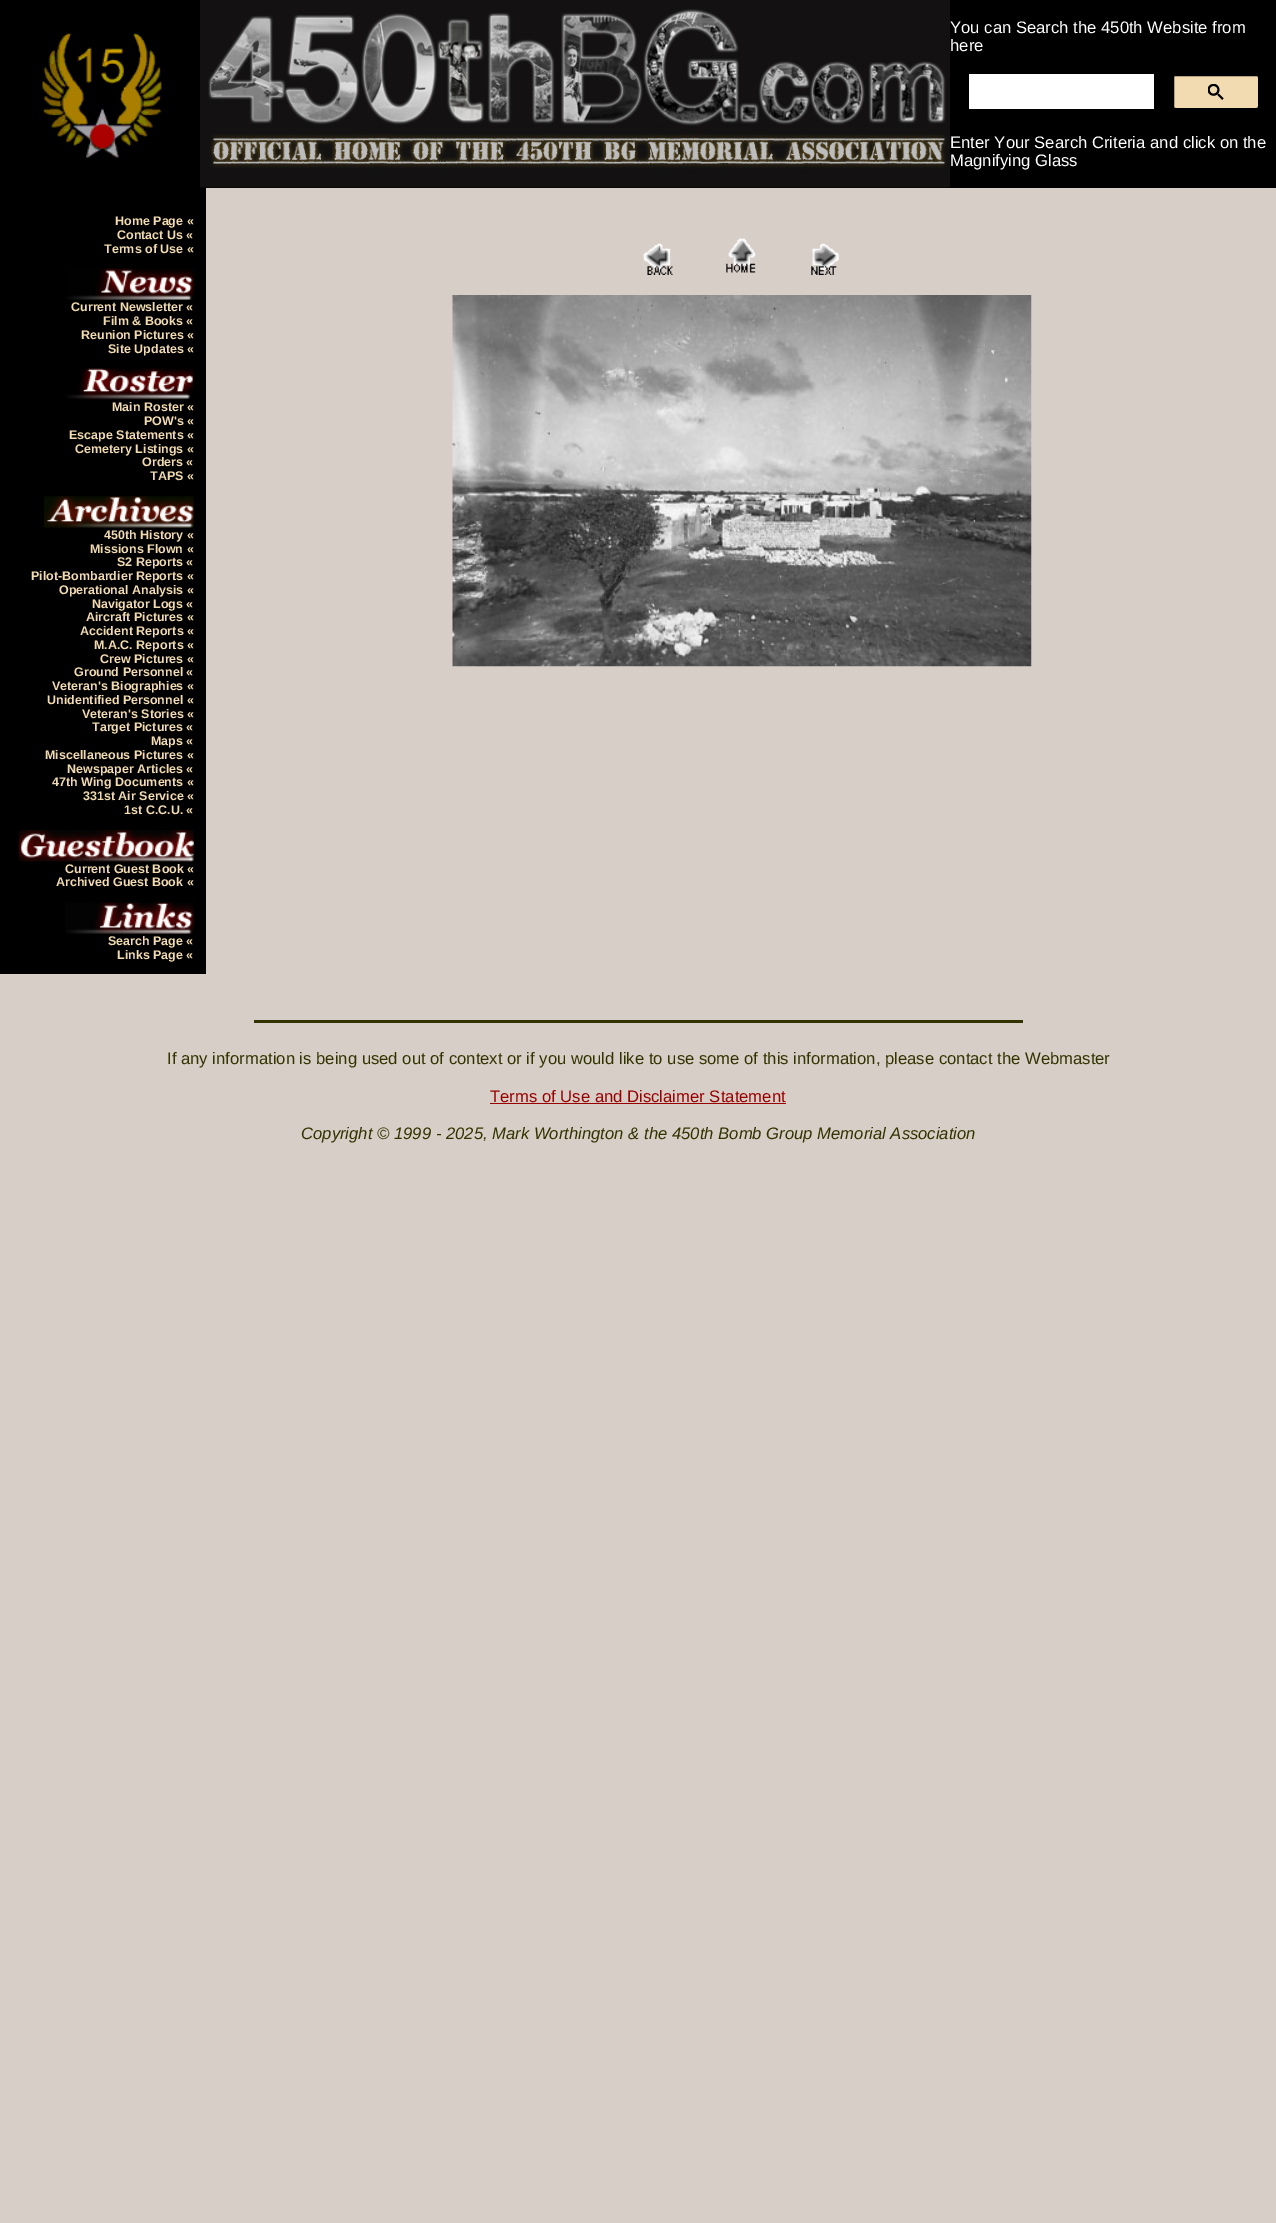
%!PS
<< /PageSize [1276 2223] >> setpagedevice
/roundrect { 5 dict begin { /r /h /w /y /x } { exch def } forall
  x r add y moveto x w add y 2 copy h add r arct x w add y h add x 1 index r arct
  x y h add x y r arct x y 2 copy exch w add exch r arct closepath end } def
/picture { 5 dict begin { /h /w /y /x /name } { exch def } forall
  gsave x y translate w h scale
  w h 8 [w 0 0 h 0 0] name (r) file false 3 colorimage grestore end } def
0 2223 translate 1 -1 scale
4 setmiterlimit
0.843 0.808 0.78 setrgbcolor
0 0 1276 2223 rectfill
0 setgray
0 0 200 188 rectfill
(img1.rgb) 42 33 120 125 picture
200 187 750 1 rectfill
(img2.rgb) 200 0 750 188 picture
950 0 326 188 rectfill
/LiberationSans-Regular [16.67 0 0 -16.67 0 0] selectfont
1 setgray
950 33 moveto (You can Search the 450th Website from) show
950 51 moveto (here) show
969 74 185 35 rectfill
0.949 0.859 0.69 setrgbcolor
1173.5 75.5 85 33 2 roundrect gsave fill grestore
0 setgray
stroke
(img3.rgb) 1208 84 16 16 picture
1 setgray
950 148 moveto (Enter Your Search Criteria and click on the) show
950 166 moveto (Magnifying Glass) show
0 setgray
0 188 206 786 rectfill
/LiberationSans-Bold [12.5 0 0 -12.5 0 0] selectfont
0.949 0.859 0.69 setrgbcolor
115 225 moveto (Home Page «) show
117 239 moveto (Contact Us «) show
104 253 moveto (Terms of Use «) show
(img4.rgb) 67 268 127 32 picture
71 311 moveto (Current Newsletter «) show
103 325 moveto (Film & Books «) show
81 339 moveto (Reunion Pictures «) show
108 353 moveto (Site Updates «) show
(img5.rgb) 66 368 128 32 picture
112 411 moveto (Main Roster «) show
144 425 moveto (POW's «) show
69 439 moveto (Escape Statements «) show
75 453 moveto (Cemetery Listings «) show
142 466 moveto (Orders «) show
150 480 moveto (TAPS «) show
(img6.rgb) 44 496 150 32 picture
104 539 moveto (450th History «) show
90 553 moveto (Missions Flown «) show
117 566 moveto (S2 Reports «) show
31 580 moveto (Pilot-Bombardier Reports «) show
59 594 moveto (Operational Analysis «) show
92 608 moveto (Navigator Logs «) show
86 621 moveto (Aircraft Pictures «) show
80 635 moveto (Accident Reports «) show
94 649 moveto (M.A.C. Reports «) show
100 663 moveto (Crew Pictures «) show
74 676 moveto (Ground Personnel «) show
52 690 moveto (Veteran's Biographies «) show
47 704 moveto (Unidentified Personnel «) show
82 718 moveto (Veteran's Stories «) show
92 731 moveto (Target Pictures «) show
151 745 moveto (Maps «) show
45 759 moveto (Miscellaneous Pictures «) show
67 773 moveto (Newspaper Articles «) show
52 786 moveto (47th Wing Documents «) show
83 800 moveto (331st Air Service «) show
124 814 moveto (1st C.C.U. «) show
(img7.rgb) 18 830 176 32 picture
65 873 moveto (Current Guest Book «) show
56 886 moveto (Archived Guest Book «) show
(img8.rgb) 65 902 129 32 picture
108 945 moveto (Search Page «) show
117 959 moveto (Links Page «) show
(img9.rgb) 643 243 30 32 picture
(img10.rgb) 726 238 30 35 picture
(img11.rgb) 811 243 28 32 picture
(img12.rgb) 452 295 580 372 picture
0.2 0.2 0 setrgbcolor
254 1020 769 3 rectfill
/LiberationSans-Regular [16.67 0 0 -16.67 0 0] selectfont
167 1064 moveto (If any information is being used out of context or if you would like to use some of this information, please contact the Webmaster) show
0.6 0 0 setrgbcolor
490 1102 moveto (Terms of Use and Disclaimer Statement) show
490 1103 296 1 rectfill
/LiberationSans-Italic [16.67 0 0 -16.67 0 0] selectfont
0.2 0.2 0 setrgbcolor
301 1139 moveto (Copyright © 1999 - 2025, Mark Worthington & the 450th Bomb Group Memorial Association) show
showpage
